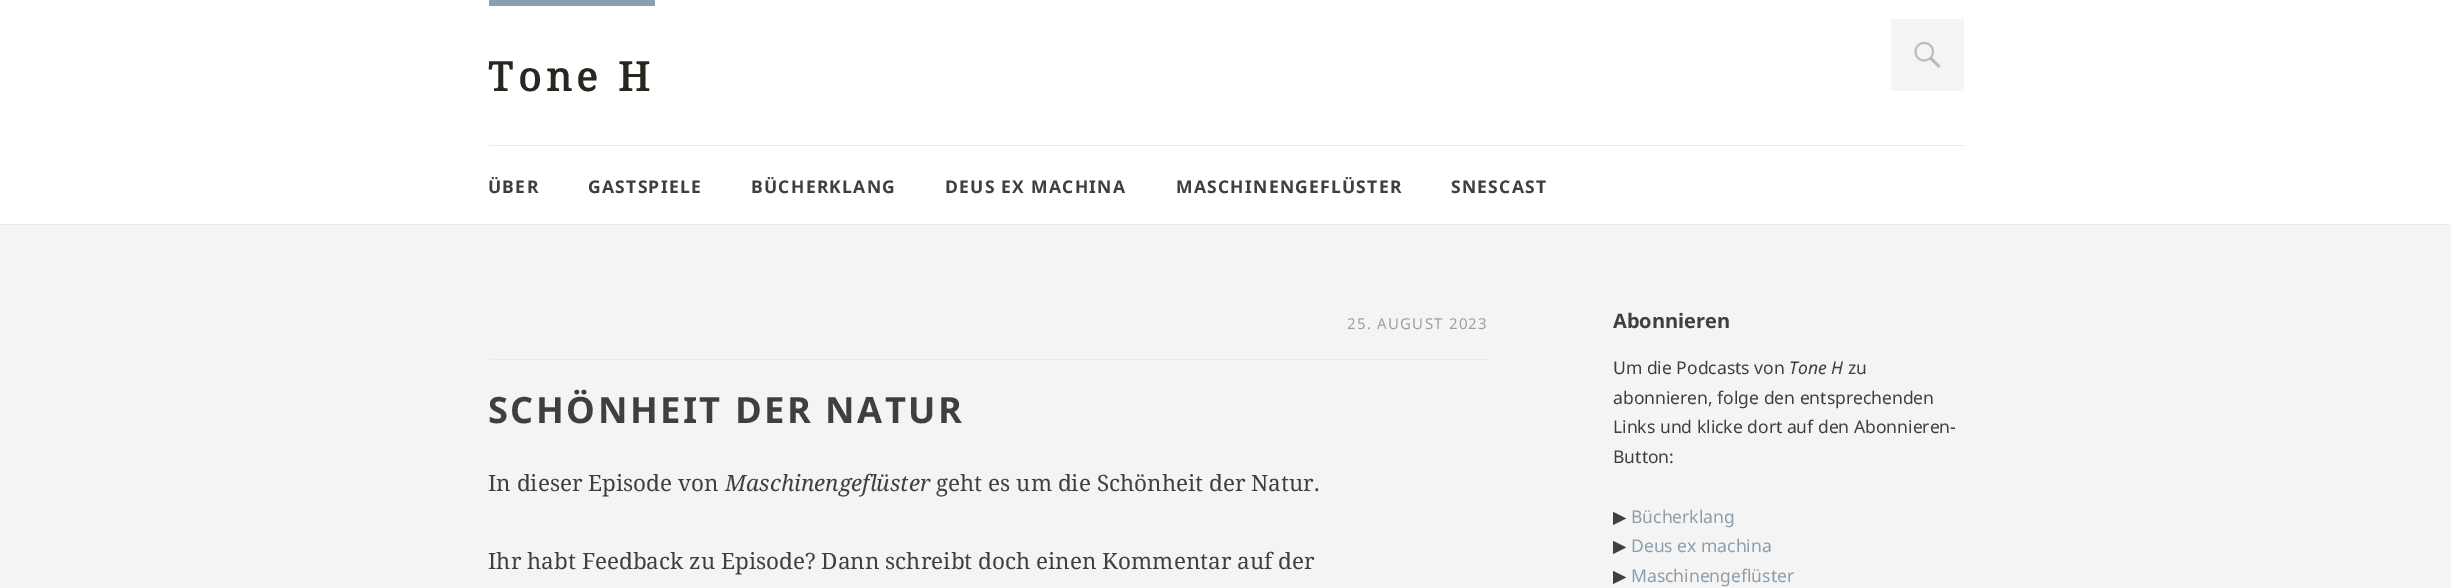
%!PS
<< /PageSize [2451 588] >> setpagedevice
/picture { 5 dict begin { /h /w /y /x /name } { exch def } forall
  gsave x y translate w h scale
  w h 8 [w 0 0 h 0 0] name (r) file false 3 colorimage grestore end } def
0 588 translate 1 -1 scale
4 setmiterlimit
0.957 setgray
0 0 2451 588 rectfill
1 setgray
0 0 2451 224 rectfill
0.918 setgray
0 224 2451 1 rectfill
0.549 0.62 0.671 setrgbcolor
489 0 166 6 rectfill
/NotoSerif-Bold [40 0 0 -40 0 0] selectfont
0.161 0.145 0.122 setrgbcolor
488 91 moveto 5 0 (Tone H) ashow
0.957 setgray
1891 19 73 72 rectfill
(img1.rgb) 1914 41 27 27 picture
0.918 setgray
489 145 1475 1 rectfill
/NotoSans-Bold [17.5 0 0 -17.5 0 0] selectfont
0.247 setgray
488 193 moveto 1.25 0 (ÜBER) ashow
588 193 moveto 1.25 0 (GASTSPIELE) ashow
751 193 moveto 1.25 0 (BÜCHERKLANG) ashow
945 193 moveto 1.25 0 (DEUS EX MACHINA) ashow
1176 193 moveto 1.25 0 (MASCHINENGEFLÜSTER) ashow
1451 193 moveto 1.25 0 (SNESCAST) ashow
/NotoSans-Regular [15 0 0 -15 0 0] selectfont
0.62 setgray
1347 329 moveto 1.25 0 (25. AUGUST 2023) ashow
0.918 setgray
489 359 1000 1 rectfill
/NotoSans-Bold [36.25 0 0 -36.25 0 0] selectfont
0.247 setgray
488 423 moveto 2.5 0 (SCHÖNHEIT DER NATUR) ashow
/NotoSerif-Regular [22.5 0 0 -22.5 0 0] selectfont
488 491 moveto (In dieser Episode von) show
/NotoSerif-Italic [22.5 0 0 -22.5 0 0] selectfont
725 491 moveto (Maschinengeflüster) show
/NotoSerif-Regular [22.5 0 0 -22.5 0 0] selectfont
936 491 moveto (geht es um die Schönheit der Natur.) show
488 569 moveto (Ihr habt Feedback zu Episode? Dann schreibt doch einen Kommentar auf der) show
/NotoSans-Bold [20 0 0 -20 0 0] selectfont
1613 328 moveto (Abonnieren) show
/NotoSans-Regular [17.5 0 0 -17.5 0 0] selectfont
1613 374 moveto (Um die Podcasts von) show
/NotoSans-Italic [17.5 0 0 -17.5 0 0] selectfont
1789 374 moveto (Tone H) show
/NotoSans-Regular [17.5 0 0 -17.5 0 0] selectfont
1848 374 moveto (zu) show
1613 404 moveto (abonnieren, folge den entsprechenden) show
1613 433 moveto (Links und klicke dort auf den Abonnieren-) show
1613 463 moveto (Button:) show
/DejaVuSans-Regular [17.5 0 0 -17.5 0 0] selectfont
1613 523 moveto (▶) show
/NotoSans-Regular [17.5 0 0 -17.5 0 0] selectfont
0.549 0.62 0.671 setrgbcolor
1631 523 moveto (Bücherklang) show
/DejaVuSans-Regular [17.5 0 0 -17.5 0 0] selectfont
0.247 setgray
1613 552 moveto (▶) show
/NotoSans-Regular [17.5 0 0 -17.5 0 0] selectfont
0.549 0.62 0.671 setrgbcolor
1631 552 moveto (Deus ex machina) show
/DejaVuSans-Regular [17.5 0 0 -17.5 0 0] selectfont
0.247 setgray
1613 582 moveto (▶) show
/NotoSans-Regular [17.5 0 0 -17.5 0 0] selectfont
0.549 0.62 0.671 setrgbcolor
1631 582 moveto (Maschinengeflüster) show
showpage
